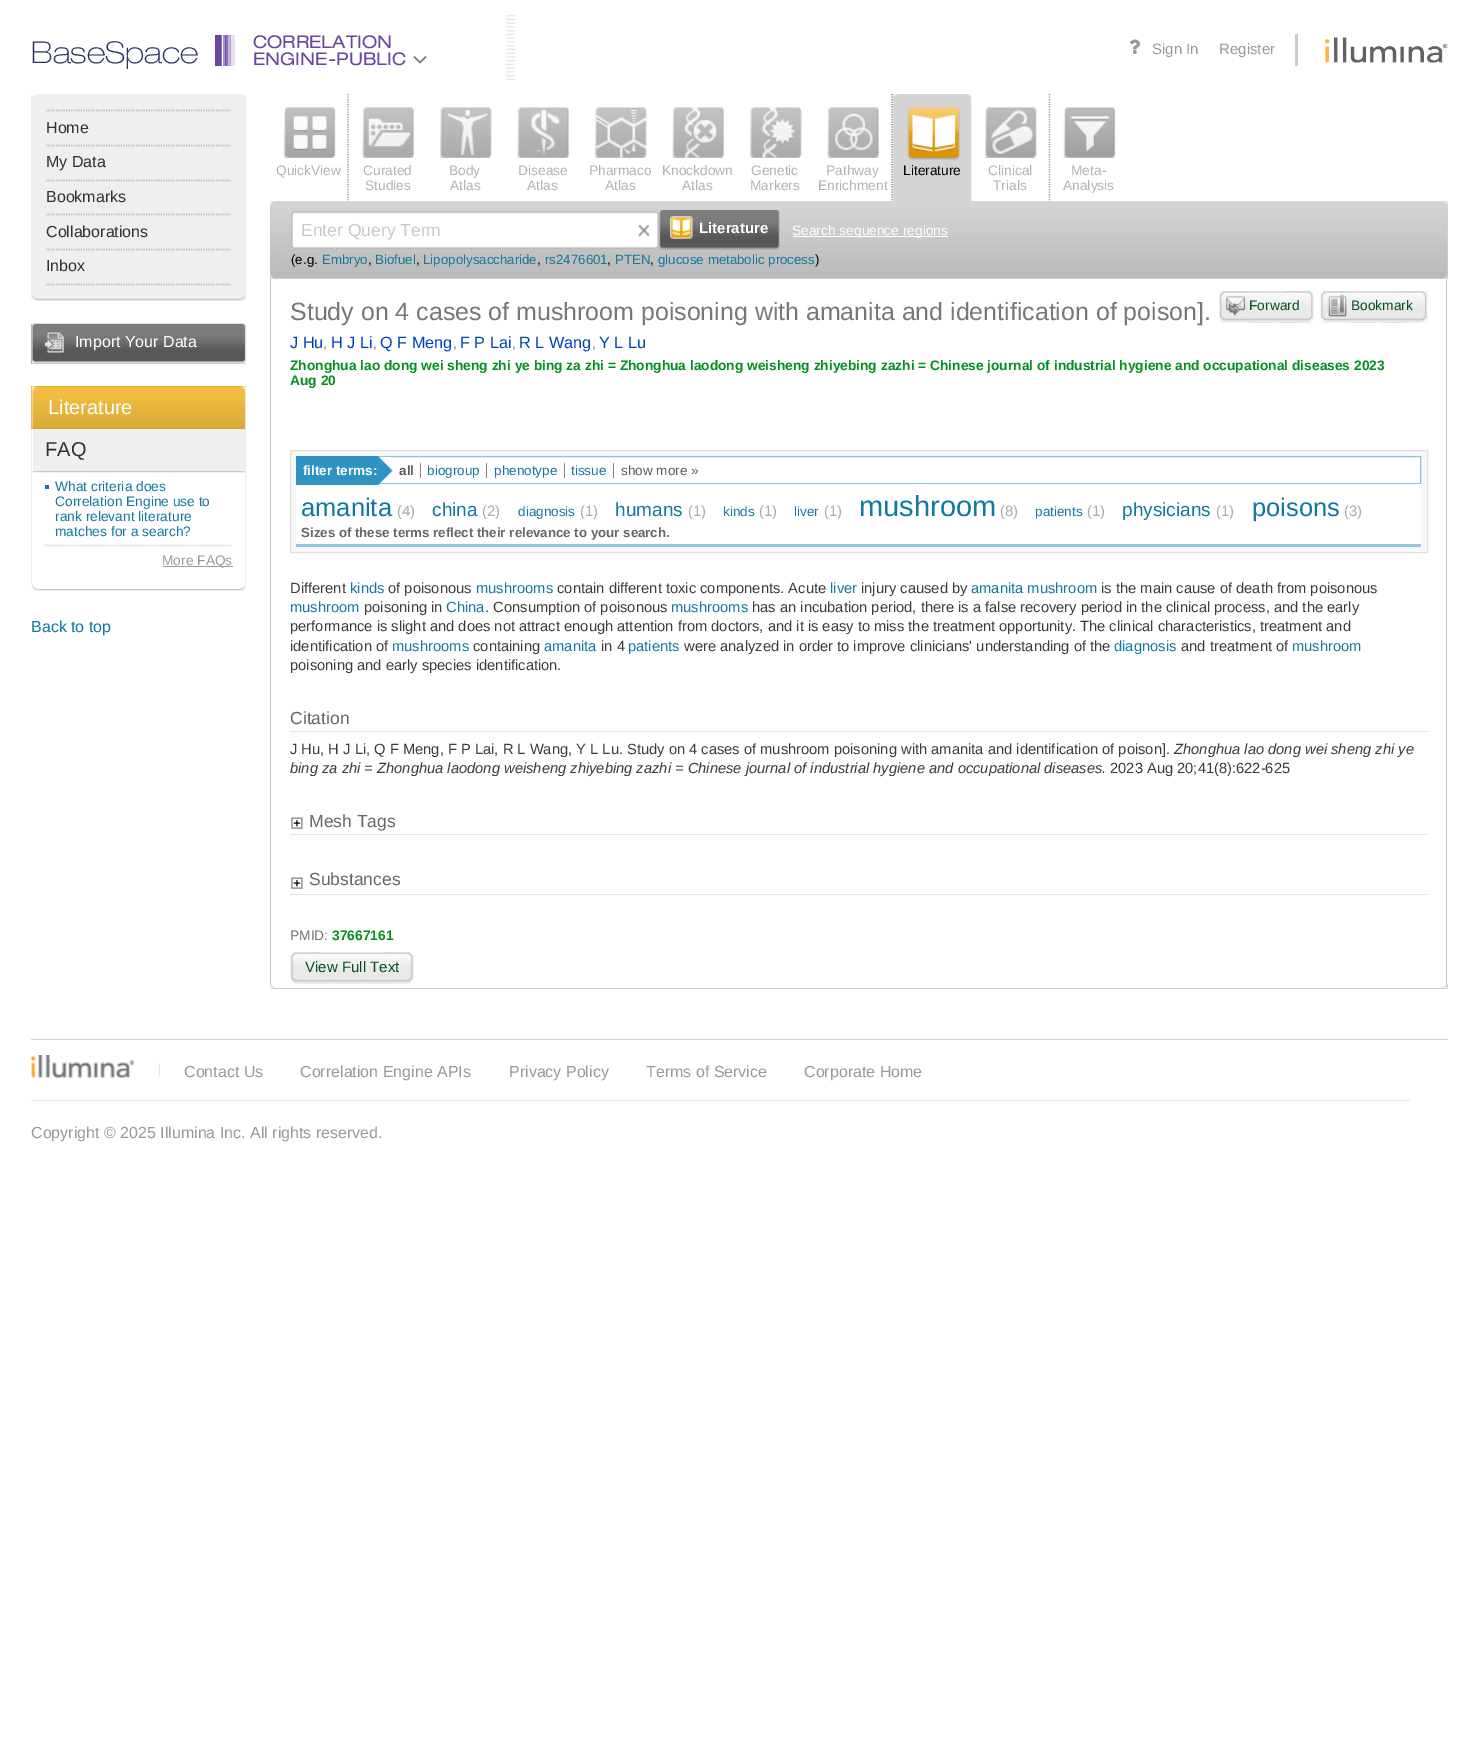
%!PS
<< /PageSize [1478 1750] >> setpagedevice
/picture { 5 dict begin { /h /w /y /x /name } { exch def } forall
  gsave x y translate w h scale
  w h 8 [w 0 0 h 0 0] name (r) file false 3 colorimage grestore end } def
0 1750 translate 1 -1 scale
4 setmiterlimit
1 setgray
0 0 1478 1750 rectfill
0.902 0.878 0.937 setrgbcolor
231 35 4 31 rectfill
0.549 0.435 0.714 setrgbcolor
226 35 2 31 rectfill
/HelveticaNeue-Thin [30 0 0 -30 0 0] selectfont
0.145 0.18 0.4 setrgbcolor
31 63 moveto (BaseSpace) show
(img1.rgb) 506 15 9 65 picture
0.42 0.275 0.631 setrgbcolor
215 35 6 31 rectfill
0.565 0.455 0.725 setrgbcolor
221 35 1 31 rectfill
0.651 0.565 0.78 setrgbcolor
223 35 2 31 rectfill
0.471 0.337 0.663 setrgbcolor
225 35 1 31 rectfill
0.769 0.71 0.851 setrgbcolor
228 35 2 31 rectfill
0.71 0.635 0.812 setrgbcolor
230 35 1 31 rectfill
/HelveticaNeue-Regular [17.5 0 0 -17.5 0 0] selectfont
0.42 0.275 0.631 setrgbcolor
253 48 moveto (CORRELATION) show
253 65 moveto (ENGINE-PUBLIC) show
(img2.rgb) 413 56 14 8 picture
(img3.rgb) 1129 39 12 15 picture
/LiberationSans-Regular [15 0 0 -15 0 0] selectfont
0.6 setgray
1152 54 moveto (Sign In) show
1219 54 moveto (Register) show
0.8 setgray
1295 34 3 32 rectfill
(img4.rgb) 1325 37 123 26 picture
0.937 setgray
31 94 215 207 rectfill
(img5.rgb) 31 94 215 4 picture
0.925 setgray
245 101 1 193 rectfill
31 101 1 193 rectfill
0.698 setgray
1.2 setlinewidth
[1.25 1.25] 0 setdash
newpath 46 110.5 moveto 231 110.5 lineto stroke
newpath 46 145.5 moveto 231 145.5 lineto stroke
/LiberationSans-Regular [16 0 0 -16 0 0] selectfont
0.192 setgray
46 133 moveto (Home) show
0.698 setgray
newpath 46 180.5 moveto 231 180.5 lineto stroke
0.192 setgray
46 167 moveto (My Data) show
0.698 setgray
newpath 46 214.5 moveto 231 214.5 lineto stroke
0.192 setgray
46 202 moveto (Bookmarks) show
0.698 setgray
newpath 46 249.5 moveto 231 249.5 lineto stroke
0.192 setgray
46 237 moveto (Collaborations) show
0.698 setgray
newpath 46 284.5 moveto 231 284.5 lineto stroke
0.192 setgray
46 271 moveto (Inbox) show
(img6.rgb) 31 295 215 6 picture
0.4 setgray
31 324 215 40 rectfill
(img7.rgb) 31 323 216 41 picture
1 setgray
75 347 moveto (Import Your Data) show
0.867 0.592 0.012 setrgbcolor
31 386 215 43 rectfill
(img8.rgb) 31 386 215 43 picture
/LiberationSans-Regular [20 0 0 -20 0 0] selectfont
1 setgray
48 414 moveto (Literature) show
0.925 setgray
245 429 1 155 rectfill
31 429 1 155 rectfill
0.937 setgray
33 429 212 44 rectfill
0.8 setgray
33 471 212 1 rectfill
0.192 setgray
45 456 moveto (FAQ) show
0.067 0.475 0.616 setrgbcolor
45 485 4 4 rectfill
0.8 setgray
newpath 45 545.5 moveto 232.5 545.5 lineto stroke
/LiberationSans-Regular [13.75 0 0 -13.75 0 0] selectfont
0.067 0.475 0.616 setrgbcolor
55 491 moveto (What criteria does) show
55 506 moveto (Correlation Engine use to) show
55 521 moveto (rank relevant literature) show
55 536 moveto (matches for a search?) show
0.6 setgray
163 566 70 1 rectfill
162 565 moveto (More FAQs) show
(img9.rgb) 31 584 7 7 picture
(img10.rgb) 240 584 6 7 picture
0.773 setgray
38 589 202 1 rectfill
0.925 setgray
38 590 202 1 rectfill
/LiberationSans-Regular [16 0 0 -16 0 0] selectfont
0.067 0.475 0.616 setrgbcolor
31 632 moveto (Back to top) show
0.612 setgray
newpath 348 94 moveto 348 201 lineto stroke
newpath 892 94 moveto 892 201 lineto stroke
0.8 setgray
284 108 50 50 rectfill
(img11.rgb) 283 107 51 51 picture
(img12.rgb) 285 107 51 51 picture
/LiberationSans-Regular [13.75 0 0 -13.75 0 0] selectfont
0.698 setgray
276 175 moveto (QuickView) show
0.8 setgray
363 108 50 50 rectfill
(img13.rgb) 362 107 51 51 picture
(img14.rgb) 363 107 51 51 picture
0.698 setgray
363 175 moveto (Curated) show
365 190 moveto (Studies) show
0.8 setgray
440 157 50 1 rectfill
(img15.rgb) 440 107 50 51 picture
(img16.rgb) 441 107 51 51 picture
0.698 setgray
449 175 moveto (Body) show
450 190 moveto (Atlas) show
0.8 setgray
518 108 50 50 rectfill
(img13.rgb) 517 107 51 51 picture
(img17.rgb) 518 107 51 51 picture
0.698 setgray
518 175 moveto (Disease) show
527 190 moveto (Atlas) show
0.8 setgray
595 157 50 1 rectfill
(img18.rgb) 595 107 50 51 picture
(img19.rgb) 596 107 51 51 picture
0.698 setgray
589 175 moveto (Pharmaco) show
605 190 moveto (Atlas) show
0.8 setgray
673 108 50 50 rectfill
(img13.rgb) 672 107 51 51 picture
(img20.rgb) 673 107 51 51 picture
0.698 setgray
662 175 moveto (Knockdown) show
682 190 moveto (Atlas) show
0.8 setgray
750 157 50 1 rectfill
(img18.rgb) 750 107 50 51 picture
(img21.rgb) 751 107 51 51 picture
0.698 setgray
751 175 moveto (Genetic) show
750 190 moveto (Markers) show
0.8 setgray
828 108 50 50 rectfill
(img13.rgb) 827 107 51 51 picture
(img22.rgb) 828 107 51 51 picture
0.698 setgray
826 175 moveto (Pathway) show
818 190 moveto (Enrichment) show
0.612 setgray
newpath 893 94 moveto 893 201 lineto stroke
0.831 setgray
270 201 1178 78 rectfill
(img27.rgb) 270 201 1178 78 picture
894 201 77 1 rectfill
(img23.rgb) 893 94 79 107 picture
(img24.rgb) 907 107 53 53 picture
0 setgray
903 175 moveto (Literature) show
0.8 setgray
985 157 50 1 rectfill
(img18.rgb) 985 107 50 51 picture
(img25.rgb) 986 107 51 51 picture
0.698 setgray
988 175 moveto (Clinical) show
993 190 moveto (Trials) show
0.612 setgray
newpath 1049.5 94 moveto 1049.5 201 lineto stroke
0.8 setgray
1064 108 50 50 rectfill
(img11.rgb) 1063 107 51 51 picture
(img26.rgb) 1064 107 52 51 picture
0.698 setgray
1071 175 moveto (Meta-) show
1063 190 moveto (Analysis) show
(img28.rgb) 270 201 5 78 picture
(img29.rgb) 1443 201 5 78 picture
1 setgray
291 211 368 38 rectfill
(img30.rgb) 291 211 368 38 picture
/LiberationSans-Regular [17.5 0 0 -17.5 0 0] selectfont
0.788 setgray
301 236 moveto (Enter Query Term) show
(img31.rgb) 638 224 12 13 picture
(img32.rgb) 658 210 118 40 picture
(img33.rgb) 776 210 4 40 picture
(img34.rgb) 670 216 23 23 picture
/LiberationSans-Bold [15 0 0 -15 0 0] selectfont
1 setgray
699 233 moveto (Literature) show
793 236 155 1 rectfill
/LiberationSans-Regular [13.75 0 0 -13.75 0 0] selectfont
792 235 moveto (Search sequence regions) show
/LiberationSans-Regular [13.3 0 0 -13.3 0 0] selectfont
0 setgray
291 264 moveto (\(e.g.) show
0.067 0.475 0.616 setrgbcolor
322 264 moveto (Embryo) show
0 setgray
368 264 moveto (,) show
0.067 0.475 0.616 setrgbcolor
375 264 moveto (Biofuel) show
0 setgray
416 264 moveto (,) show
0.067 0.475 0.616 setrgbcolor
423 264 moveto (Lipopolysaccharide) show
0 setgray
537 264 moveto (,) show
0.067 0.475 0.616 setrgbcolor
545 264 moveto (rs2476601) show
0 setgray
607 264 moveto (,) show
0.067 0.475 0.616 setrgbcolor
615 264 moveto (PTEN) show
0 setgray
650 264 moveto (,) show
0.067 0.475 0.616 setrgbcolor
658 264 moveto (glucose metabolic process) show
0 setgray
815 264 moveto (\)) show
0.8 setgray
1446 274 1 710 rectfill
270 274 1 710 rectfill
/LiberationSans-Regular [24.95 0 0 -24.95 0 0] selectfont
0.467 setgray
290 320 moveto (Study on 4 cases of mushroom poisoning with amanita and identification of poison].) show
0.937 setgray
1219 291 95 32 rectfill
(img35.rgb) 1219 291 30 32 picture
(img36.rgb) 1283 291 31 32 picture
(img37.rgb) 1249 291 50 32 picture
/LiberationSans-Regular [13.75 0 0 -13.75 0 0] selectfont
0 0.314 0.125 setrgbcolor
1249 310 moveto (Forward) show
0.937 setgray
1320 291 108 32 rectfill
(img38.rgb) 1320 291 30 32 picture
(img39.rgb) 1397 291 31 32 picture
(img40.rgb) 1350 291 63 32 picture
0 0.314 0.125 setrgbcolor
1351 310 moveto (Bookmark) show
/LiberationSans-Regular [16.25 0 0 -16.25 0 0] selectfont
0 0.251 0.753 setrgbcolor
290 348 moveto (J Hu) show
/LiberationSans-Regular [13.75 0 0 -13.75 0 0] selectfont
0.439 setgray
323 348 moveto (,) show
/LiberationSans-Regular [16.25 0 0 -16.25 0 0] selectfont
0 0.251 0.753 setrgbcolor
331 348 moveto (H J Li) show
/LiberationSans-Regular [13.75 0 0 -13.75 0 0] selectfont
0.439 setgray
373 348 moveto (,) show
/LiberationSans-Regular [16.25 0 0 -16.25 0 0] selectfont
0 0.251 0.753 setrgbcolor
380 348 moveto (Q F Meng) show
/LiberationSans-Regular [13.75 0 0 -13.75 0 0] selectfont
0.439 setgray
453 348 moveto (,) show
/LiberationSans-Regular [16.25 0 0 -16.25 0 0] selectfont
0 0.251 0.753 setrgbcolor
460 348 moveto (F P Lai) show
/LiberationSans-Regular [13.75 0 0 -13.75 0 0] selectfont
0.439 setgray
512 348 moveto (,) show
/LiberationSans-Regular [16.25 0 0 -16.25 0 0] selectfont
0 0.251 0.753 setrgbcolor
519 348 moveto (R L Wang) show
/LiberationSans-Regular [13.75 0 0 -13.75 0 0] selectfont
0.439 setgray
592 348 moveto (,) show
/LiberationSans-Regular [16.25 0 0 -16.25 0 0] selectfont
0 0.251 0.753 setrgbcolor
599 348 moveto (Y L Lu) show
/LiberationSans-Bold [13.75 0 0 -13.75 0 0] selectfont
0 0.565 0.125 setrgbcolor
290 370 moveto (Zhonghua lao dong wei sheng zhi ye bing za zhi = Zhonghua laodong weisheng zhiyebing zazhi = Chinese journal of industrial hygiene and occupational diseases 2023) show
290 385 moveto (Aug 20) show
0.969 setgray
newpath 290.5 450.5 moveto 1427.5 450.5 lineto 1427.5 552.5 lineto 290.5 552.5 lineto closepath gsave fill grestore
0.871 setgray
1 setlinewidth
[] 0 setdash
stroke
1 setgray
378 457 1042 26 rectfill
0.553 0.765 0.859 setrgbcolor
296.5 456.5 1124 27 rectstroke
1 setgray
296 484 1125 60 rectfill
(img41.rgb) 378 456 15 29 picture
0.18 0.573 0.765 setrgbcolor
296 456 82 29 rectfill
/LiberationSans-Bold [13.5 0 0 -13.5 0 0] selectfont
1 setgray
303 475 moveto (filter terms:) show
0.518 setgray
420 463 1 15 rectfill
0.361 setgray
399 475 moveto (all) show
0.518 setgray
486 463 1 15 rectfill
/LiberationSans-Regular [13.5 0 0 -13.5 0 0] selectfont
0.067 0.475 0.616 setrgbcolor
427 475 moveto (biogroup) show
0.518 setgray
564 463 1 15 rectfill
0.067 0.475 0.616 setrgbcolor
494 475 moveto (phenotype) show
0.518 setgray
613 463 1 15 rectfill
0.067 0.475 0.616 setrgbcolor
571 475 moveto (tissue) show
0.361 setgray
621 475 moveto (show more ») show
0.573 0.78 0.878 setrgbcolor
296 544 1125 3 rectfill
/LiberationSans-Regular [25.5 0 0 -25.5 0 0] selectfont
0.067 0.475 0.616 setrgbcolor
301 516 moveto (amanita) show
/LiberationSans-Regular [15 0 0 -15 0 0] selectfont
0.667 setgray
397 516 moveto (\(4\)) show
/LiberationSans-Regular [19 0 0 -19 0 0] selectfont
0.067 0.475 0.616 setrgbcolor
432 516 moveto (china) show
/LiberationSans-Regular [15 0 0 -15 0 0] selectfont
0.667 setgray
482 516 moveto (\(2\)) show
/LiberationSans-Regular [13.5 0 0 -13.5 0 0] selectfont
0.067 0.475 0.616 setrgbcolor
518 516 moveto (diagnosis) show
/LiberationSans-Regular [15 0 0 -15 0 0] selectfont
0.667 setgray
580 516 moveto (\(1\)) show
/LiberationSans-Regular [19 0 0 -19 0 0] selectfont
0.067 0.475 0.616 setrgbcolor
615 516 moveto (humans) show
/LiberationSans-Regular [15 0 0 -15 0 0] selectfont
0.667 setgray
688 516 moveto (\(1\)) show
/LiberationSans-Regular [13.5 0 0 -13.5 0 0] selectfont
0.067 0.475 0.616 setrgbcolor
723 516 moveto (kinds) show
/LiberationSans-Regular [15 0 0 -15 0 0] selectfont
0.667 setgray
759 516 moveto (\(1\)) show
/LiberationSans-Regular [13.5 0 0 -13.5 0 0] selectfont
0.067 0.475 0.616 setrgbcolor
794 516 moveto (liver) show
/LiberationSans-Regular [15 0 0 -15 0 0] selectfont
0.667 setgray
824 516 moveto (\(1\)) show
/LiberationSans-Regular [29 0 0 -29 0 0] selectfont
0.067 0.475 0.616 setrgbcolor
859 516 moveto (mushroom) show
/LiberationSans-Regular [15 0 0 -15 0 0] selectfont
0.667 setgray
1000 516 moveto (\(8\)) show
/LiberationSans-Regular [13.5 0 0 -13.5 0 0] selectfont
0.067 0.475 0.616 setrgbcolor
1035 516 moveto (patients) show
/LiberationSans-Regular [15 0 0 -15 0 0] selectfont
0.667 setgray
1087 516 moveto (\(1\)) show
/LiberationSans-Regular [19 0 0 -19 0 0] selectfont
0.067 0.475 0.616 setrgbcolor
1122 516 moveto (physicians) show
/LiberationSans-Regular [15 0 0 -15 0 0] selectfont
0.667 setgray
1216 516 moveto (\(1\)) show
/LiberationSans-Regular [25.5 0 0 -25.5 0 0] selectfont
0.067 0.475 0.616 setrgbcolor
1252 516 moveto (poisons) show
/LiberationSans-Regular [15 0 0 -15 0 0] selectfont
0.667 setgray
1344 516 moveto (\(3\)) show
/LiberationSans-Bold [13.3 0 0 -13.3 0 0] selectfont
0.4 setgray
301 537 moveto (Sizes of these terms reflect their relevance to your search.) show
/LiberationSans-Regular [14.72 0 0 -14.72 0 0] selectfont
0.231 setgray
290 593 moveto (Different) show
0.067 0.475 0.616 setrgbcolor
350 593 moveto (kinds) show
0.231 setgray
388 593 moveto (of poisonous) show
0.067 0.475 0.616 setrgbcolor
476 593 moveto (mushrooms) show
0.231 setgray
557 593 moveto (contain different toxic components. Acute) show
0.067 0.475 0.616 setrgbcolor
830 593 moveto (liver) show
0.231 setgray
861 593 moveto (injury caused by) show
0.067 0.475 0.616 setrgbcolor
971 593 moveto (amanita mushroom) show
0.231 setgray
1101 593 moveto (is the main cause of death from poisonous) show
0.067 0.475 0.616 setrgbcolor
290 612 moveto (mushroom) show
0.231 setgray
364 612 moveto (poisoning in) show
0.067 0.475 0.616 setrgbcolor
446 612 moveto (China) show
0.231 setgray
485 612 moveto (. Consumption of poisonous) show
0.067 0.475 0.616 setrgbcolor
671 612 moveto (mushrooms) show
0.231 setgray
752 612 moveto (has an incubation period, there is a false recovery period in the clinical process, and the early) show
290 631 moveto (performance is slight and does not attract enough attention from doctors, and it is easy to miss the treatment opportunity. The clinical characteristics, treatment and) show
290 651 moveto (identification of) show
0.067 0.475 0.616 setrgbcolor
392 651 moveto (mushrooms) show
0.231 setgray
473 651 moveto (containing) show
0.067 0.475 0.616 setrgbcolor
544 651 moveto (amanita) show
0.231 setgray
601 651 moveto (in 4) show
0.067 0.475 0.616 setrgbcolor
628 651 moveto (patients) show
0.231 setgray
684 651 moveto (were analyzed in order to improve clinicians' understanding of the) show
0.067 0.475 0.616 setrgbcolor
1114 651 moveto (diagnosis) show
0.231 setgray
1181 651 moveto (and treatment of) show
0.067 0.475 0.616 setrgbcolor
1292 651 moveto (mushroom) show
0.231 setgray
290 670 moveto (poisoning and early species identification.) show
0.898 setgray
290 731 1138 1 rectfill
/LiberationSans-Regular [17.5 0 0 -17.5 0 0] selectfont
0.4 setgray
290 724 moveto (Citation) show
/LiberationSans-Regular [14.72 0 0 -14.72 0 0] selectfont
0.231 setgray
290 754 moveto (J Hu, H J Li, Q F Meng, F P Lai, R L Wang, Y L Lu. Study on 4 cases of mushroom poisoning with amanita and identification of poison].) show
/LiberationSans-Italic [14.72 0 0 -14.72 0 0] selectfont
1174 754 moveto (Zhonghua lao dong wei sheng zhi ye) show
290 773 moveto (bing za zhi = Zhonghua laodong weisheng zhiyebing zazhi = Chinese journal of industrial hygiene and occupational diseases.) show
/LiberationSans-Regular [14.72 0 0 -14.72 0 0] selectfont
1110 773 moveto (2023 Aug 20;41\(8\):622-625) show
0.898 setgray
290 834 1138 1 rectfill
(img42.rgb) 291 817 12 12 picture
/LiberationSans-Regular [17.5 0 0 -17.5 0 0] selectfont
0.4 setgray
309 827 moveto (Mesh Tags) show
0.898 setgray
290 894 1138 1 rectfill
(img42.rgb) 291 877 12 12 picture
0.4 setgray
309 885 moveto (Substances) show
/LiberationSans-Regular [13.75 0 0 -13.75 0 0] selectfont
0.439 setgray
290 940 moveto (PMID:) show
/LiberationSans-Bold [13.75 0 0 -13.75 0 0] selectfont
0 0.565 0.125 setrgbcolor
332 940 moveto (37667161) show
0.937 setgray
290 953 124 31 rectfill
(img43.rgb) 290 952 30 32 picture
(img44.rgb) 383 952 31 32 picture
(img45.rgb) 305 952 94 32 picture
/LiberationSans-Regular [15 0 0 -15 0 0] selectfont
0 0.314 0.125 setrgbcolor
305 972 moveto (View Full Text) show
0.8 setgray
270 984 1178 5 rectfill
(img46.rgb) 270 983 5 6 picture
(img47.rgb) 1443 984 5 5 picture
1 setgray
275 984 1168 4 rectfill
0.82 setgray
31 1039 1417 1 rectfill
(img48.rgb) 31 1055 103 23 picture
0.898 setgray
159 1063 1 13 rectfill
/LiberationSans-Regular [16 0 0 -16 0 0] selectfont
0.6 setgray
184 1077 moveto (Contact Us) show
300 1077 moveto (Correlation Engine APIs) show
509 1077 moveto (Privacy Policy) show
646 1077 moveto (Terms of Service) show
804 1077 moveto (Corporate Home) show
0.898 setgray
31 1100 1379 1 rectfill
0.6 setgray
31 1138 moveto (Copyright © 2025 Illumina Inc. All rights reserved.) show
showpage
